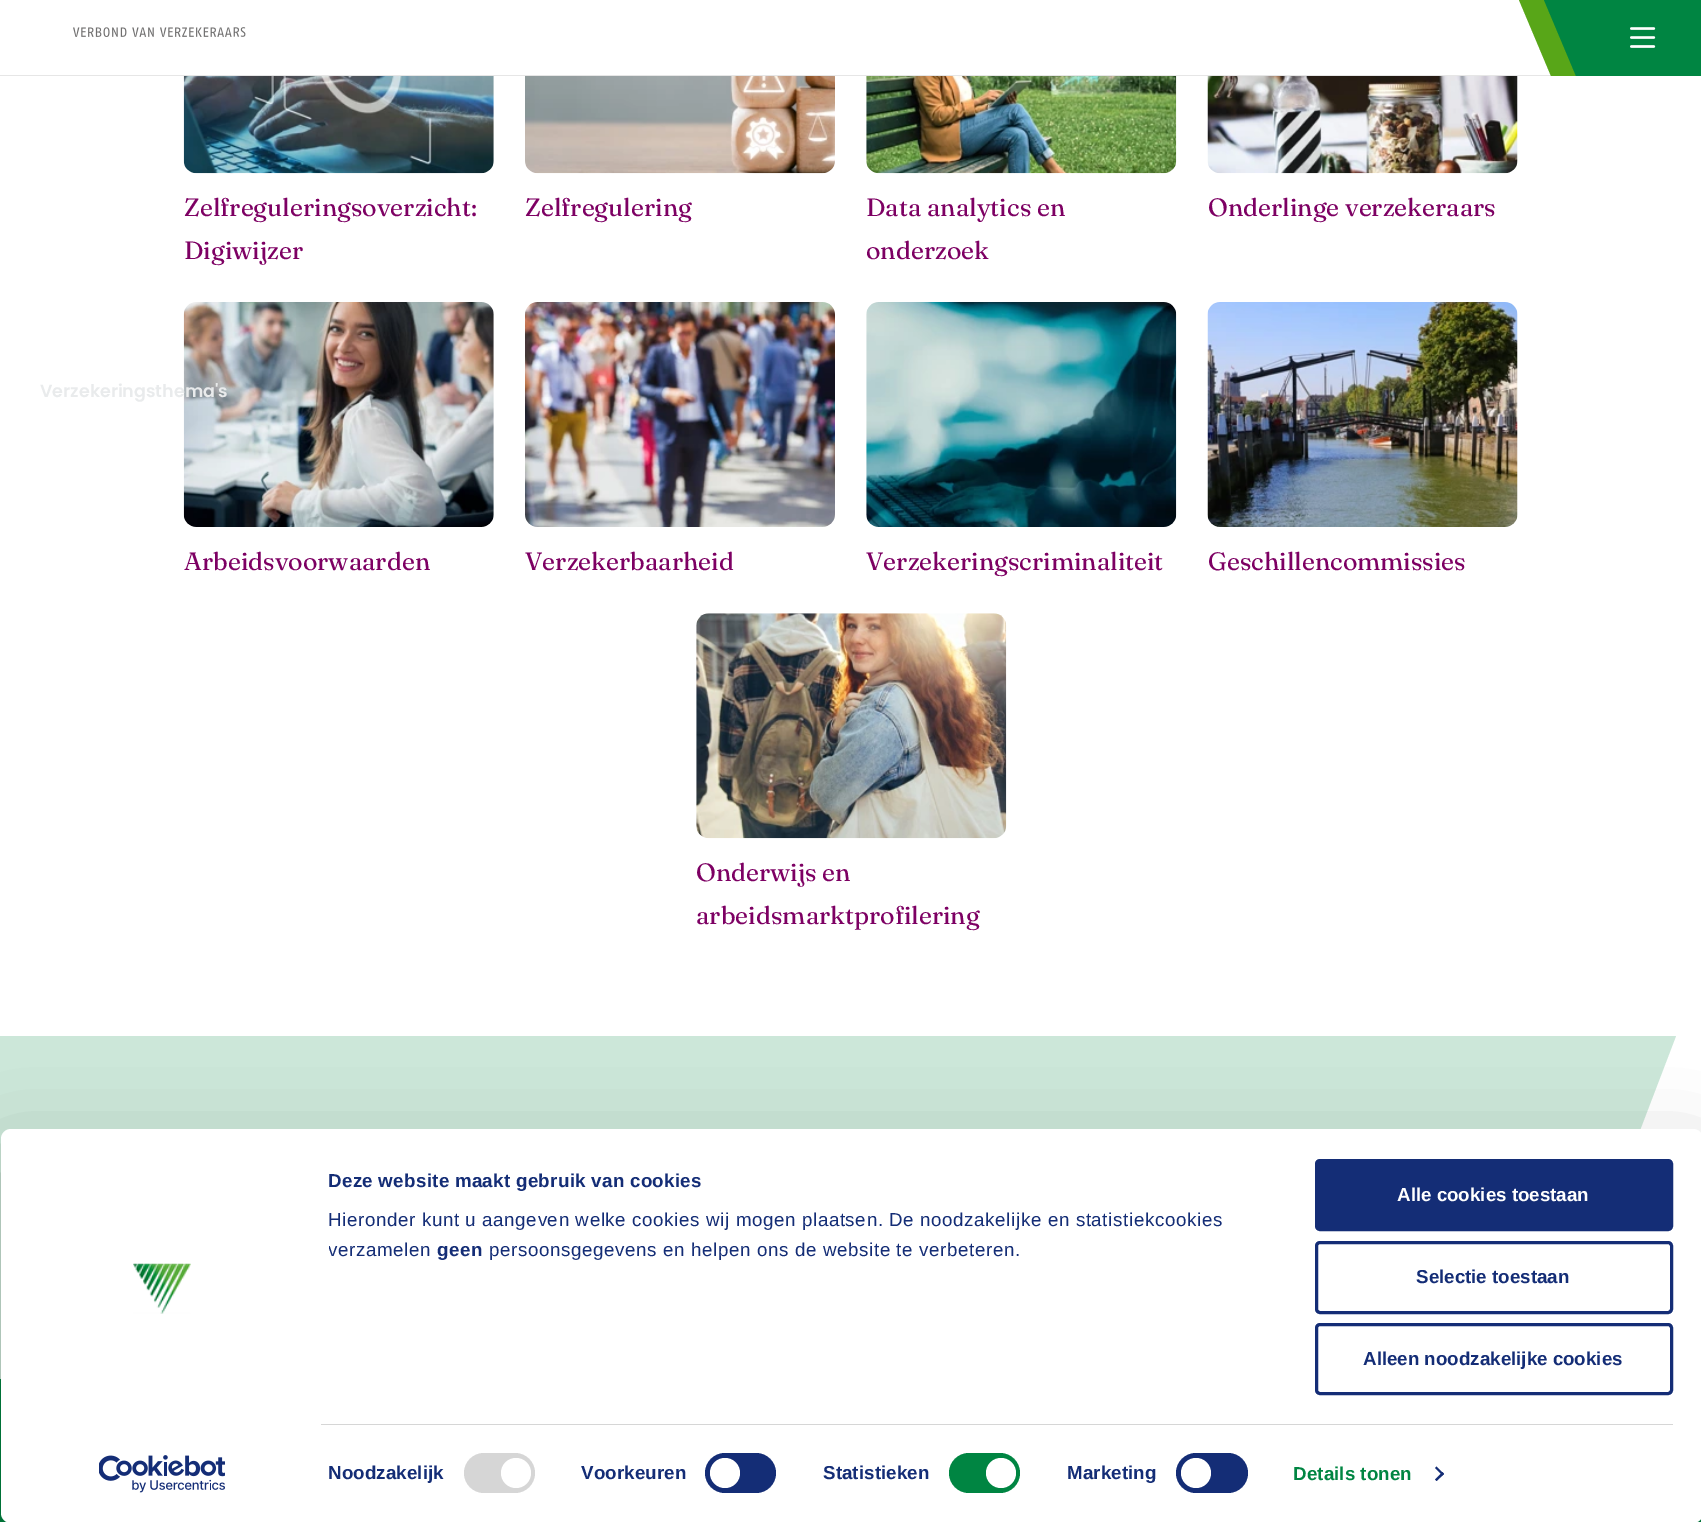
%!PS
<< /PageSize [1701 1522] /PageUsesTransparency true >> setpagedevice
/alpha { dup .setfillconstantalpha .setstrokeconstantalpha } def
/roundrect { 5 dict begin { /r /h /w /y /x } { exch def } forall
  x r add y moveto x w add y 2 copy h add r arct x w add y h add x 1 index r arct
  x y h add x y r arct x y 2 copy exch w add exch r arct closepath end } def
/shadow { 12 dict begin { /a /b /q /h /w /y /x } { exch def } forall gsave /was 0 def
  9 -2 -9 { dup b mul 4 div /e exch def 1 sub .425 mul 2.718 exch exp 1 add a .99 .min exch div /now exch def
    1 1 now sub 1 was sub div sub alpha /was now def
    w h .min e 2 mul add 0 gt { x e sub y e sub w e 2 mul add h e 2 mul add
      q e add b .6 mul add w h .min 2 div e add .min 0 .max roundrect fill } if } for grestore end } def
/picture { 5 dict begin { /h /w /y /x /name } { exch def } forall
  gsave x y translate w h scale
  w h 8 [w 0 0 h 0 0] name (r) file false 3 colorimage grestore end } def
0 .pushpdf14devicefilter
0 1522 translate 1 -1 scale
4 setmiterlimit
1 setgray
0 0 1701 1522 rectfill
0.902 setgray
0 75 1551 1 rectfill
(img1.rgb) 73 27 173 10 picture
0 0.522 0.259 setrgbcolor
1633 0 68 76 rectfill
gsave
1508 0 100 76 rectclip
0.345 0.651 0.094 setrgbcolor
newpath 1519 0 moveto 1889 0 lineto 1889 76 lineto 1551 76 lineto closepath fill
grestore
gsave
1533 0 100 76 rectclip
newpath 1544 0 moveto 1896 0 lineto 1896 76 lineto 1576 76 lineto closepath fill
grestore
(img2.rgb) 1630 27 26 21 picture
(img7.rgb) 183 302 311 225 picture
/Poppins-SemiBold [17.5 0 0 -17.5 0 0] selectfont
0.914 0.922 0.925 setrgbcolor
40 397 moveto (Verzekeringsthema's) show
(img3.rgb) 183 76 311 98 picture
/Fraunces-Regular [25 0 0 -25 0 0] selectfont
0.49 0 0.388 setrgbcolor
184 216 moveto (Zelfreguleringsoverzicht:) show
184 259 moveto (Digiwijzer) show
(img4.rgb) 525 76 310 98 picture
525 216 moveto (Zelfregulering) show
(img5.rgb) 866 76 311 98 picture
866 216 moveto (Data analytics en) show
866 259 moveto (onderzoek) show
(img6.rgb) 1207 76 311 98 picture
1208 216 moveto (Onderlinge verzekeraars) show
184 570 moveto (Arbeidsvoorwaarden) show
(img8.rgb) 525 302 310 225 picture
525 570 moveto (Verzekerbaarheid) show
(img9.rgb) 866 302 311 225 picture
866 570 moveto (Verzekeringscriminaliteit) show
(img10.rgb) 1207 302 311 225 picture
1208 570 moveto (Geschillencommissies) show
(img11.rgb) 696 613 311 226 picture
696 881 moveto (Onderwijs en) show
696 924 moveto (arbeidsmarktprofilering) show
0.8 0.906 0.851 setrgbcolor
newpath 1676 1036 moveto -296 1036 lineto -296 1379 lineto 1545 1379 lineto closepath fill
0 0.522 0.259 setrgbcolor
0 1379 1701 143 rectfill
0 setgray
1 1166 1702 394 10 44 0.3 shadow
1 setgray
1 1129 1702 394 10 roundrect fill
(img12.rgb) 133 1263 58 51 picture
(img13.rgb) 99 1455 126 38 picture
gsave
329 1166 950 222 rectclip
/LiberationSans-Bold [18.75 0 0 -18.75 0 0] selectfont
0.078 0.176 0.463 setrgbcolor
328 1187 moveto 0.3 0 (Deze website maakt gebruik van cookies) ashow
grestore
/LiberationSans-Regular [18.75 0 0 -18.75 0 0] selectfont
0.078 0.176 0.463 setrgbcolor
328 1226 moveto 0.62 0 (Hieronder kunt u aangeven welke cookies wij mogen plaatsen. De noodzakelijke en statistiekcookies) ashow
gsave
329 1166 950 222 rectclip
328 1256 moveto 0.62 0 (verzamelen) ashow
grestore
/LiberationSans-Bold [18.75 0 0 -18.75 0 0] selectfont
437 1256 moveto 0.62 0 (geen) ashow
/LiberationSans-Regular [18.75 0 0 -18.75 0 0] selectfont
489 1256 moveto 0.62 0 (persoonsgegevens en helpen ons de website te verbeteren.) ashow
0.839 setgray
321 1424 1352 1 rectfill
/LiberationSans-Bold [18.75 0 0 -18.75 0 0] selectfont
0.078 0.176 0.463 setrgbcolor
328 1479 moveto 0.1 0 (Noodzakelijk) ashow
0.839 setgray
464 1453 71 40 20 roundrect fill
1 setgray
newpath 516 1473 15 0 360 arc closepath fill
0.078 0.176 0.463 setrgbcolor
581 1479 moveto 0.1 0 (Voorkeuren) ashow
705 1453 71 40 20 roundrect fill
1 setgray
newpath 725 1473 15 0 360 arc closepath fill
0.078 0.176 0.463 setrgbcolor
823 1479 moveto 0.1 0 (Statistieken) ashow
0 0.522 0.259 setrgbcolor
949 1453 71 40 20 roundrect fill
1 setgray
newpath 1001 1473 15 0 360 arc closepath fill
0.078 0.176 0.463 setrgbcolor
1067 1479 moveto 0.1 0 (Marketing) ashow
1176 1453 72 40 20 roundrect fill
1 setgray
newpath 1196 1473 15 0 360 arc closepath fill
0 0.522 0.259 setrgbcolor
1293 1480 moveto 0.1 0 (Details tonen) ashow
0.078 0.176 0.463 setrgbcolor
newpath 1436.5 1466.5 moveto 1444 1474 lineto 1442.5 1475.5 lineto 1435 1468 lineto closepath fill
newpath 1442.5 1472 moveto 1444 1474 lineto 1436.5 1481 lineto 1435 1479.5 lineto closepath fill
1316.5 1160.5 355 69 3.5 roundrect gsave fill grestore
3 setlinewidth
stroke
1 setgray
1397 1201 moveto (Alle cookies toestaan) show
0.078 0.176 0.463 setrgbcolor
1316.5 1242.5 355 70 3.5 roundrect stroke
1416 1283 moveto (Selectie toestaan) show
1316.5 1324.5 355 69 3.5 roundrect stroke
1363 1365 moveto (Alleen noodzakelijke cookies) show
.poppdf14devicefilter showpage
